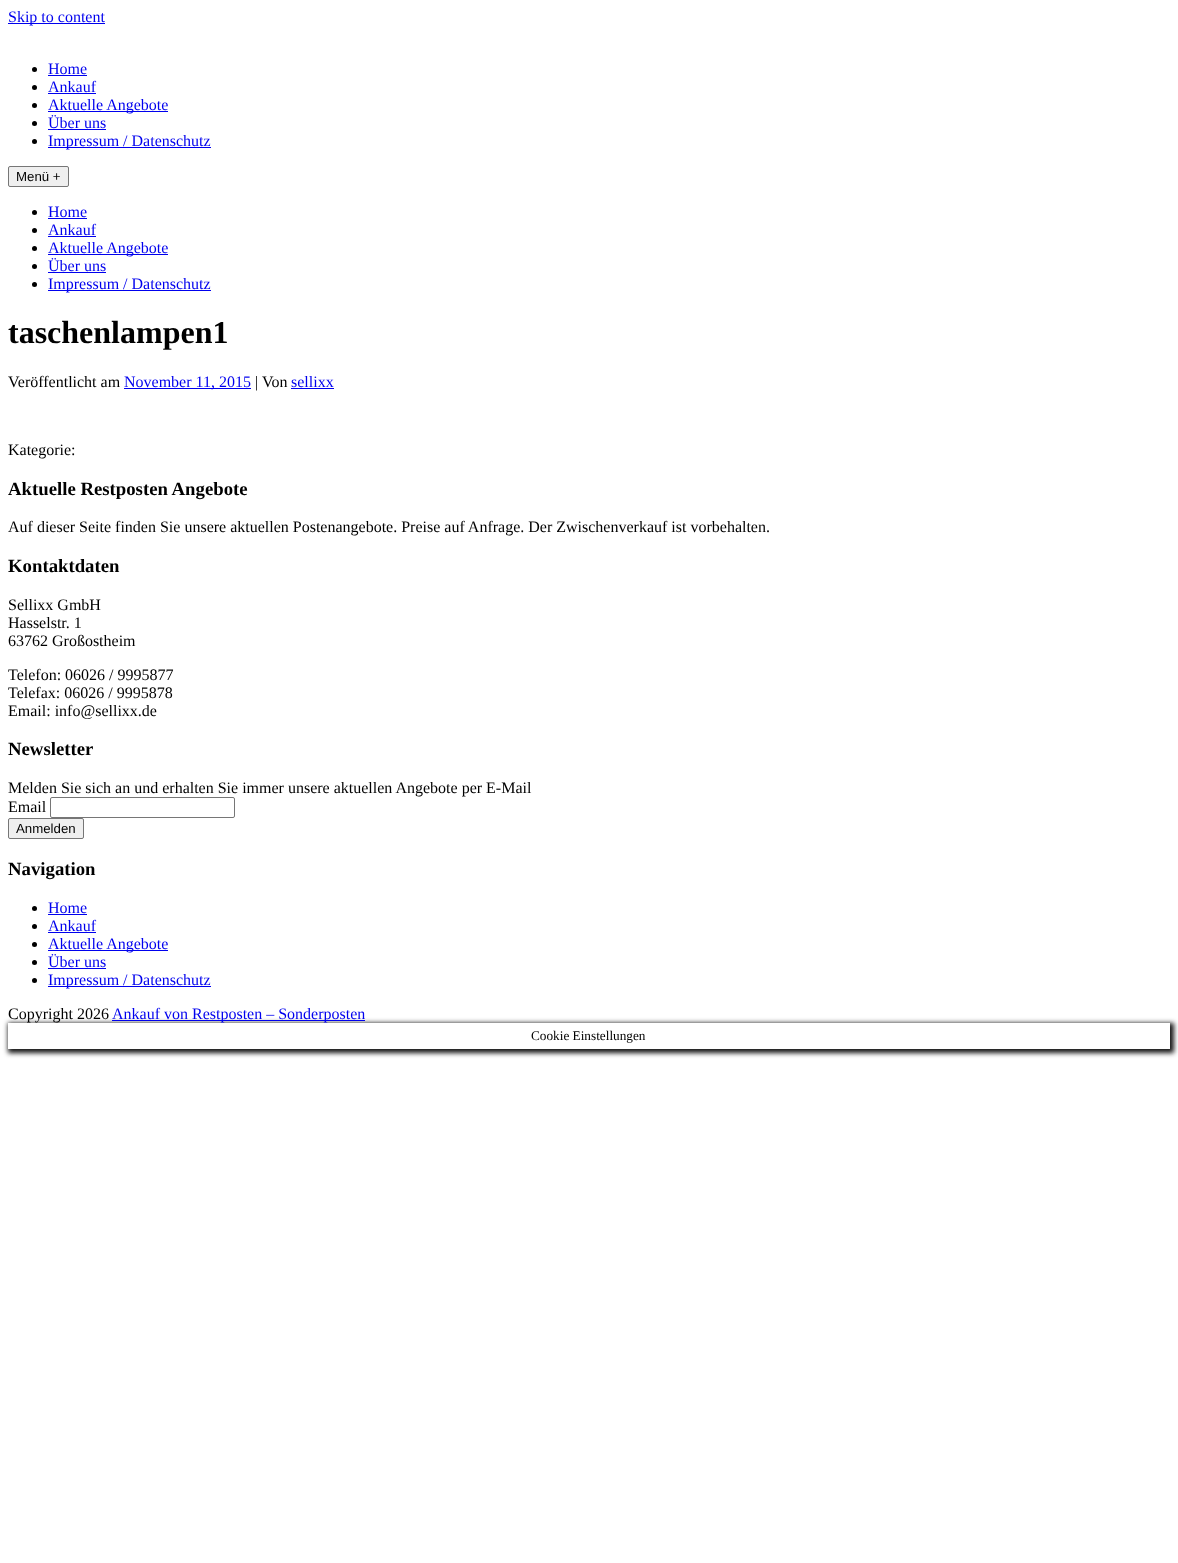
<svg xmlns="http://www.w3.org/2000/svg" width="1178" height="1563">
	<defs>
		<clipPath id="clip1"><path d="M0 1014H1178V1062H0ZM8 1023H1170V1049H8Z" clip-rule="evenodd" /></clipPath>
	</defs>
	<rect width="100%" height="100%" fill="#FFFFFF" />
	<rect x="8" y="23" width="97" height="1" fill="#0000EE" />
	<text x="8" y="22" font-family="Liberation Serif" font-size="16" fill="#0000EE">Skip to content</text>
	<circle cx="34.5" cy="69.5" r="2.5" fill="#000000" />
	<text x="48" y="74" font-family="Liberation Serif" font-size="16" fill="#0000EE">Home</text>
	<rect x="48" y="75" width="39" height="1" fill="#0000EE" />
	<circle cx="34.5" cy="87.5" r="2.5" fill="#000000" />
	<text x="48" y="92" font-family="Liberation Serif" font-size="16" fill="#0000EE">Ankauf</text>
	<rect x="48" y="93" width="48" height="1" fill="#0000EE" />
	<circle cx="34.5" cy="105.5" r="2.5" fill="#000000" />
	<rect x="48" y="111" width="120" height="1" fill="#0000EE" />
	<text x="48" y="110" font-family="Liberation Serif" font-size="16" fill="#0000EE">Aktuelle Angebote</text>
	<circle cx="34.5" cy="123.5" r="2.5" fill="#000000" />
	<text x="48" y="128" font-family="Liberation Serif" font-size="16" fill="#0000EE">Über uns</text>
	<rect x="48" y="129" width="58" height="1" fill="#0000EE" />
	<circle cx="34.5" cy="141.5" r="2.5" fill="#000000" />
	<rect x="48" y="147" width="163" height="1" fill="#0000EE" />
	<text x="48" y="146" font-family="Liberation Serif" font-size="16" fill="#0000EE">Impressum / Datenschutz</text>
	<rect x="8.5" y="166.5" width="60" height="20" rx="1.5" fill="#EFEFEF" stroke="#767676" />
	<text x="16" y="181" font-family="Liberation Sans" font-size="13.25" fill="#000000">Menü +</text>
	<circle cx="34.5" cy="212.5" r="2.5" fill="#000000" />
	<text x="48" y="217" font-family="Liberation Serif" font-size="16" fill="#0000EE">Home</text>
	<rect x="48" y="218" width="39" height="1" fill="#0000EE" />
	<circle cx="34.5" cy="230.5" r="2.5" fill="#000000" />
	<text x="48" y="235" font-family="Liberation Serif" font-size="16" fill="#0000EE">Ankauf</text>
	<rect x="48" y="236" width="48" height="1" fill="#0000EE" />
	<circle cx="34.5" cy="248.5" r="2.5" fill="#000000" />
	<rect x="48" y="254" width="120" height="1" fill="#0000EE" />
	<text x="48" y="253" font-family="Liberation Serif" font-size="16" fill="#0000EE">Aktuelle Angebote</text>
	<circle cx="34.5" cy="266.5" r="2.5" fill="#000000" />
	<text x="48" y="271" font-family="Liberation Serif" font-size="16" fill="#0000EE">Über uns</text>
	<rect x="48" y="272" width="58" height="1" fill="#0000EE" />
	<circle cx="34.5" cy="284.5" r="2.5" fill="#000000" />
	<rect x="48" y="290" width="163" height="1" fill="#0000EE" />
	<text x="48" y="289" font-family="Liberation Serif" font-size="16" fill="#0000EE">Impressum / Datenschutz</text>
	<text x="8" y="343" font-family="Liberation Serif" font-size="32" font-weight="700" fill="#000000">taschenlampen1</text>
	<text x="8" y="387" font-family="Liberation Serif" font-size="16" fill="#000000">Veröffentlicht am</text>
	<rect x="124" y="388" width="127" height="1" fill="#0000EE" />
	<text x="124" y="387" font-family="Liberation Serif" font-size="16" fill="#0000EE">November 11, 2015</text>
	<text x="255" y="387" font-family="Liberation Serif" font-size="16" fill="#000000">| Von</text>
	<text x="291" y="387" font-family="Liberation Serif" font-size="16" fill="#0000EE">sellixx</text>
	<rect x="291" y="388" width="43" height="1" fill="#0000EE" />
	<text x="8" y="455" font-family="Liberation Serif" font-size="16" fill="#000000">Kategorie:</text>
	<text x="8" y="495" font-family="Liberation Serif" font-size="18.75" font-weight="700" fill="#000000">Aktuelle Restposten Angebote</text>
	<text x="8" y="532" font-family="Liberation Serif" font-size="16" fill="#000000">Auf dieser Seite finden Sie unsere aktuellen Postenangebote. Preise auf Anfrage. Der Zwischenverkauf ist vorbehalten.</text>
	<text x="8" y="572" font-family="Liberation Serif" font-size="18.75" font-weight="700" fill="#000000">Kontaktdaten</text>
	<g font-family="Liberation Serif" font-size="16" fill="#000000">
		<text x="8" y="610">Sellixx GmbH</text>
		<text x="8" y="628">Hasselstr. 1</text>
		<text x="8" y="646">63762 Großostheim</text>
		<text x="8" y="680">Telefon: 06026 / 9995877</text>
		<text x="8" y="698">Telefax: 06026 / 9995878</text>
		<text x="8" y="716">Email: info@sellixx.de</text>
	</g>
	<text x="8" y="755" font-family="Liberation Serif" font-size="18.75" font-weight="700" fill="#000000">Newsletter</text>
	<g font-family="Liberation Serif" font-size="16" fill="#000000">
		<text x="8" y="793">Melden Sie sich an und erhalten Sie immer unsere aktuellen Angebote per E-Mail</text>
		<text x="8" y="812">Email</text>
	</g>
	<rect x="50.5" y="797.5" width="184" height="20" rx="1.5" fill="none" stroke="#767676" />
	<rect x="8.5" y="818.5" width="75" height="20" rx="1.5" fill="#EFEFEF" stroke="#767676" />
	<text x="16" y="833" font-family="Liberation Sans" font-size="13.25" fill="#000000">Anmelden</text>
	<text x="8" y="875" font-family="Liberation Serif" font-size="18.75" font-weight="700" fill="#000000">Navigation</text>
	<circle cx="34.5" cy="908.5" r="2.5" fill="#000000" />
	<text x="48" y="913" font-family="Liberation Serif" font-size="16" fill="#0000EE">Home</text>
	<rect x="48" y="914" width="39" height="1" fill="#0000EE" />
	<circle cx="34.5" cy="926.5" r="2.5" fill="#000000" />
	<text x="48" y="931" font-family="Liberation Serif" font-size="16" fill="#0000EE">Ankauf</text>
	<rect x="48" y="932" width="48" height="1" fill="#0000EE" />
	<circle cx="34.5" cy="944.5" r="2.5" fill="#000000" />
	<rect x="48" y="950" width="120" height="1" fill="#0000EE" />
	<text x="48" y="949" font-family="Liberation Serif" font-size="16" fill="#0000EE">Aktuelle Angebote</text>
	<circle cx="34.5" cy="962.5" r="2.5" fill="#000000" />
	<text x="48" y="967" font-family="Liberation Serif" font-size="16" fill="#0000EE">Über uns</text>
	<rect x="48" y="968" width="58" height="1" fill="#0000EE" />
	<circle cx="34.5" cy="980.5" r="2.5" fill="#000000" />
	<rect x="48" y="986" width="163" height="1" fill="#0000EE" />
	<text x="48" y="985" font-family="Liberation Serif" font-size="16" fill="#0000EE">Impressum / Datenschutz</text>
	<g clip-path="url(#clip1)">
		<rect x="8" y="1023" width="1166" height="30" fill="#161616" filter="blur(2.5px)" />
	</g>
	<text x="8" y="1019" font-family="Liberation Serif" font-size="16" fill="#000000">Copyright 2026</text>
	<rect x="112" y="1020" width="253" height="1" fill="#0000EE" />
	<text x="112" y="1019" font-family="Liberation Serif" font-size="16" fill="#0000EE">Ankauf von Restposten – Sonderposten</text>
	<text x="531" y="1040" font-family="Liberation Serif" font-size="13.25" fill="#000000">Cookie Einstellungen</text>
</svg>
